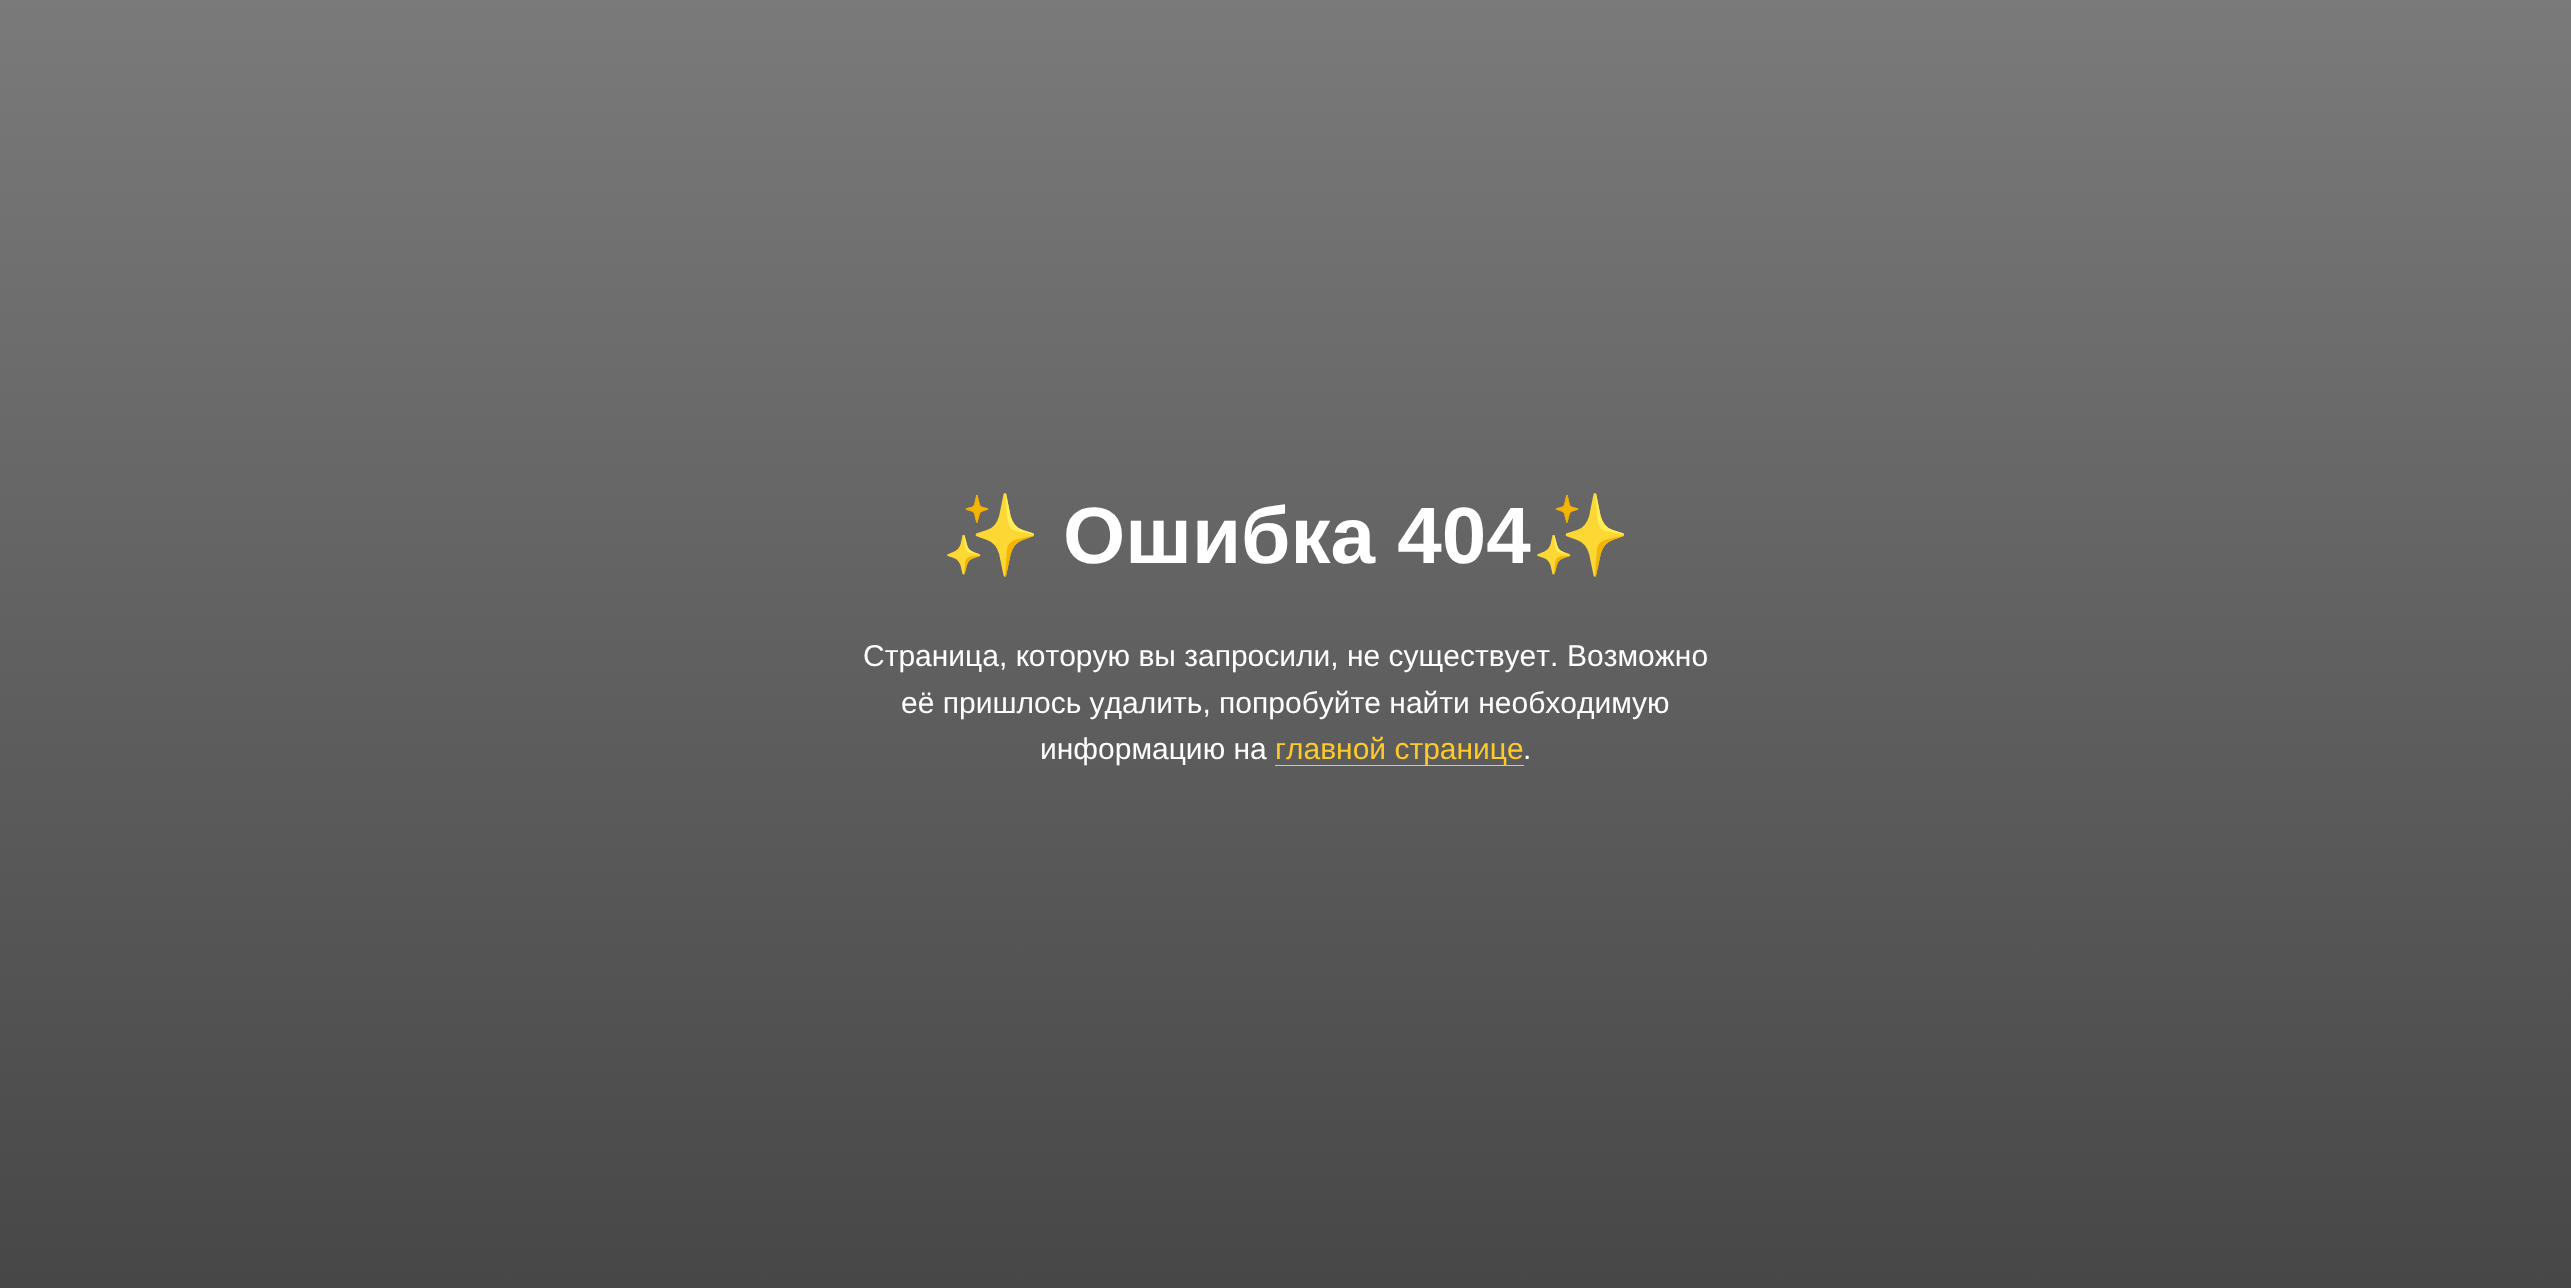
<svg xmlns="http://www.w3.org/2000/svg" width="2571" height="1288">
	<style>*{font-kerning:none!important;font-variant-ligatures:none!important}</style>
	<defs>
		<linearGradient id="g1" gradientUnits="userSpaceOnUse" x1="1286" y1="0" x2="1286" y2="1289"><stop offset="0" stop-color="#7A7A7A" /><stop offset="1" stop-color="#474747" /></linearGradient>
	</defs>
	<rect width="100%" height="100%" fill="#FFFFFF" />
	<rect x="0" y="0" width="2571" height="1288" fill="url(#g1)" />
	<text x="941" y="563" font-family="Noto Color Emoji" font-size="80" font-weight="700" fill="#FFFFFF">✨</text>
	<text x="1063" y="563" font-family="Liberation Sans" font-size="80" font-weight="700" fill="#FFFFFF">Ошибка 404</text>
	<text x="1531" y="563" font-family="Noto Color Emoji" font-size="80" font-weight="700" fill="#FFFFFF">✨</text>
	<g font-family="Liberation Sans" font-size="30" fill="#FFFFFF">
		<text x="863" y="666">Страница, которую вы запросили, не существует.</text>
		<text x="1567" y="666">Возможно</text>
		<text x="901" y="713">её пришлось удалить, попробуйте найти необходимую</text>
		<text x="1040" y="759">информацию на</text>
	</g>
	<rect x="1275" y="765" width="249" height="1" fill="#FECA29" />
	<text x="1275" y="759" font-family="Liberation Sans" font-size="30" fill="#FECA29">главной странице</text>
	<text x="1523" y="759" font-family="Liberation Sans" font-size="30" fill="#FFFFFF">.</text>
</svg>
